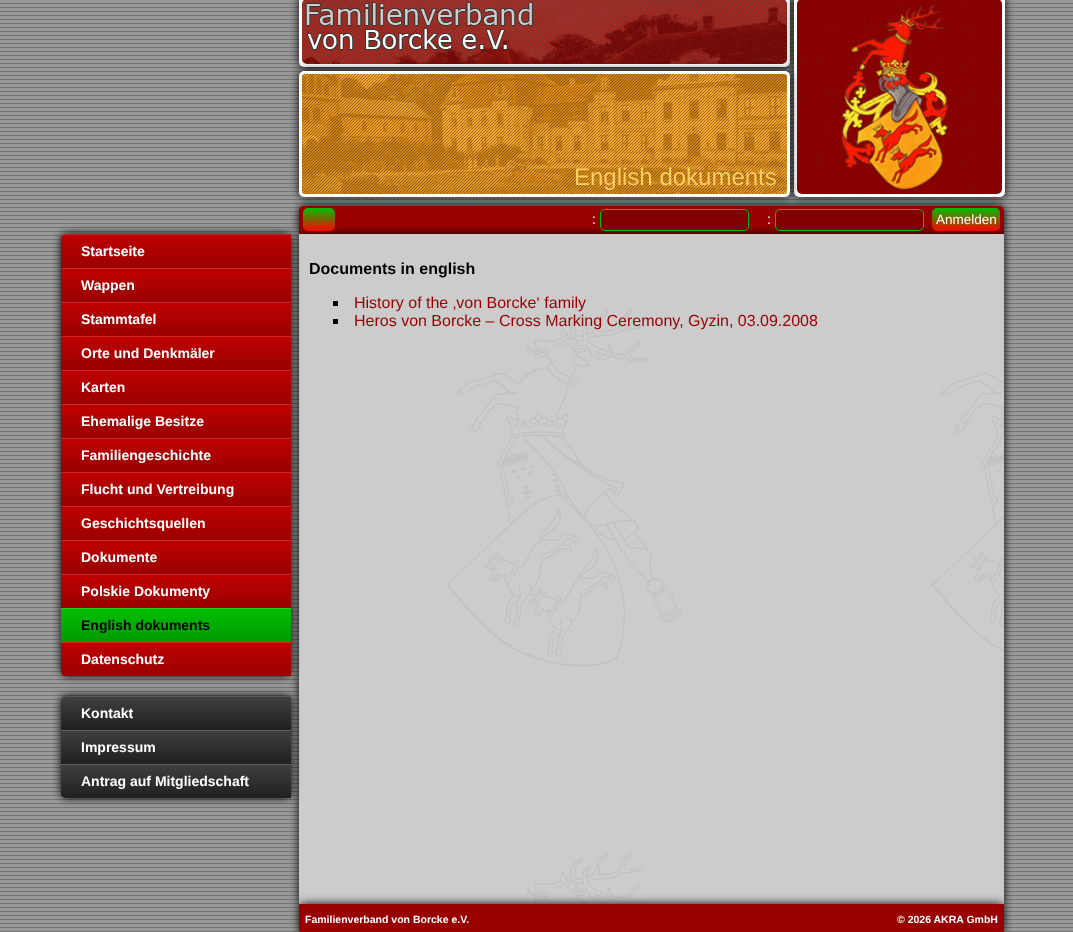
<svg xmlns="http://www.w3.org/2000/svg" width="1073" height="932">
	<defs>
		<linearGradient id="g1" gradientUnits="userSpaceOnUse" x1="319" y1="208" x2="319" y2="231"><stop offset="0" stop-color="#00C000" /><stop offset="1" stop-color="#FF0000" /></linearGradient>
		<linearGradient id="g2" gradientUnits="userSpaceOnUse" x1="966" y1="208" x2="966" y2="231"><stop offset="0" stop-color="#00C000" /><stop offset="1" stop-color="#FF0000" /></linearGradient>
		<linearGradient id="g3" gradientUnits="userSpaceOnUse" x1="176" y1="234" x2="176" y2="268"><stop offset="0" stop-color="#C00000" /><stop offset="1" stop-color="#990000" /></linearGradient>
		<linearGradient id="g4" gradientUnits="userSpaceOnUse" x1="176" y1="268" x2="176" y2="302"><stop offset="0" stop-color="#C00000" /><stop offset="1" stop-color="#990000" /></linearGradient>
		<linearGradient id="g5" gradientUnits="userSpaceOnUse" x1="176" y1="302" x2="176" y2="336"><stop offset="0" stop-color="#C00000" /><stop offset="1" stop-color="#990000" /></linearGradient>
		<linearGradient id="g6" gradientUnits="userSpaceOnUse" x1="176" y1="336" x2="176" y2="370"><stop offset="0" stop-color="#C00000" /><stop offset="1" stop-color="#990000" /></linearGradient>
		<linearGradient id="g7" gradientUnits="userSpaceOnUse" x1="176" y1="370" x2="176" y2="404"><stop offset="0" stop-color="#C00000" /><stop offset="1" stop-color="#990000" /></linearGradient>
		<linearGradient id="g8" gradientUnits="userSpaceOnUse" x1="176" y1="404" x2="176" y2="438"><stop offset="0" stop-color="#C00000" /><stop offset="1" stop-color="#990000" /></linearGradient>
		<linearGradient id="g9" gradientUnits="userSpaceOnUse" x1="176" y1="438" x2="176" y2="472"><stop offset="0" stop-color="#C00000" /><stop offset="1" stop-color="#990000" /></linearGradient>
		<linearGradient id="g10" gradientUnits="userSpaceOnUse" x1="176" y1="472" x2="176" y2="506"><stop offset="0" stop-color="#C00000" /><stop offset="1" stop-color="#990000" /></linearGradient>
		<linearGradient id="g11" gradientUnits="userSpaceOnUse" x1="176" y1="506" x2="176" y2="540"><stop offset="0" stop-color="#C00000" /><stop offset="1" stop-color="#990000" /></linearGradient>
		<linearGradient id="g12" gradientUnits="userSpaceOnUse" x1="176" y1="540" x2="176" y2="574"><stop offset="0" stop-color="#C00000" /><stop offset="1" stop-color="#990000" /></linearGradient>
		<linearGradient id="g13" gradientUnits="userSpaceOnUse" x1="176" y1="574" x2="176" y2="608"><stop offset="0" stop-color="#C00000" /><stop offset="1" stop-color="#990000" /></linearGradient>
		<linearGradient id="g14" gradientUnits="userSpaceOnUse" x1="176" y1="608" x2="176" y2="642"><stop offset="0" stop-color="#00C000" /><stop offset="1" stop-color="#009900" /></linearGradient>
		<linearGradient id="g15" gradientUnits="userSpaceOnUse" x1="176" y1="642" x2="176" y2="676"><stop offset="0" stop-color="#C00000" /><stop offset="1" stop-color="#990000" /></linearGradient>
		<linearGradient id="g16" gradientUnits="userSpaceOnUse" x1="176" y1="696" x2="176" y2="730"><stop offset="0" stop-color="#404040" /><stop offset="1" stop-color="#202020" /></linearGradient>
		<linearGradient id="g17" gradientUnits="userSpaceOnUse" x1="176" y1="730" x2="176" y2="764"><stop offset="0" stop-color="#404040" /><stop offset="1" stop-color="#202020" /></linearGradient>
		<linearGradient id="g18" gradientUnits="userSpaceOnUse" x1="176" y1="764" x2="176" y2="798"><stop offset="0" stop-color="#404040" /><stop offset="1" stop-color="#202020" /></linearGradient>
	</defs>
	<rect width="100%" height="100%" fill="#FFFFFF" />
	<image x="0" y="0" width="1073" height="932" href="assets/img1.png" />
	<rect x="299" y="-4" width="491" height="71" rx="5" fill="#000000" filter="blur(5px)" />
	<rect x="299" y="-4" width="491" height="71" rx="5" fill="#FFFFFF" />
	<image x="302" y="0" width="485" height="64" href="assets/img2.png" />
	<rect x="794" y="-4" width="211" height="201" rx="5" fill="#000000" filter="blur(5px)" />
	<rect x="794" y="-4" width="211" height="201" rx="5" fill="#FFFFFF" />
	<rect x="299" y="71" width="491" height="126" rx="5" fill="#000000" filter="blur(5px)" />
	<rect x="299" y="71" width="491" height="126" rx="5" fill="#FFFFFF" />
	<image x="302" y="74" width="485" height="120" href="assets/img4.png" />
	<rect x="299" y="206" width="705" height="28" rx="5" fill="#000000" filter="blur(5px)" />
	<image x="797" y="0" width="205" height="194" href="assets/img3.png" />
	<text x="574" y="185" font-family="Liberation Sans" font-size="24" fill="#FFCC66">English dokuments</text>
	<path d="M304 206H999C1002 206 1004 208 1004 211V234H299V211C299 208 301 206 304 206Z" fill="#990000" />
	<rect x="299" y="234" width="705" height="670" fill="#000000" filter="blur(5px)" />
	<rect x="303" y="208" width="32" height="23" rx="5" fill="url(#g1)" />
	<text x="592" y="224" font-family="Liberation Sans" font-size="14" fill="#FFFFFF">:</text>
	<rect x="600.5" y="209.5" width="148" height="21" rx="4.5" fill="#800000" stroke="#00C000" />
	<text x="767" y="224" font-family="Liberation Sans" font-size="14" fill="#FFFFFF">:</text>
	<rect x="775.5" y="209.5" width="148" height="21" rx="4.5" fill="#800000" stroke="#00C000" />
	<rect x="932" y="208" width="68" height="23" rx="5" fill="url(#g2)" />
	<text x="936" y="224" font-family="Liberation Sans" font-size="13.5" fill="#FFFFFF">Anmelden</text>
	<image x="299" y="234" width="705" height="670" href="assets/img5.png" />
	<rect x="61" y="234" width="230" height="442" rx="5" fill="#000000" filter="blur(5px)" />
	<path d="M66 234H291V268H61V239C61 236 63 234 66 234Z" fill="url(#g3)" />
	<path d="M66 235H291V234H66C63 234 61 237 61 240C61 237 63 235 66 235Z" fill="#FFFFFF" fill-opacity="0.15" />
	<text x="81" y="256" font-family="Liberation Sans" font-size="14" font-weight="700" fill="#FFFFFF">Startseite</text>
	<rect x="61" y="269" width="230" height="33" fill="url(#g4)" />
	<rect x="61" y="268" width="230" height="1" fill="#C92626" />
	<text x="81" y="290" font-family="Liberation Sans" font-size="14" font-weight="700" fill="#FFFFFF">Wappen</text>
	<rect x="61" y="303" width="230" height="33" fill="url(#g5)" />
	<rect x="61" y="302" width="230" height="1" fill="#C92626" />
	<text x="81" y="324" font-family="Liberation Sans" font-size="14" font-weight="700" fill="#FFFFFF">Stammtafel</text>
	<rect x="61" y="337" width="230" height="33" fill="url(#g6)" />
	<rect x="61" y="336" width="230" height="1" fill="#C92626" />
	<text x="81" y="358" font-family="Liberation Sans" font-size="14" font-weight="700" fill="#FFFFFF">Orte und Denkmäler</text>
	<rect x="61" y="371" width="230" height="33" fill="url(#g7)" />
	<rect x="61" y="370" width="230" height="1" fill="#C92626" />
	<text x="81" y="392" font-family="Liberation Sans" font-size="14" font-weight="700" fill="#FFFFFF">Karten</text>
	<rect x="61" y="405" width="230" height="33" fill="url(#g8)" />
	<rect x="61" y="404" width="230" height="1" fill="#C92626" />
	<text x="81" y="426" font-family="Liberation Sans" font-size="14" font-weight="700" fill="#FFFFFF">Ehemalige Besitze</text>
	<rect x="61" y="439" width="230" height="33" fill="url(#g9)" />
	<rect x="61" y="438" width="230" height="1" fill="#C92626" />
	<text x="81" y="460" font-family="Liberation Sans" font-size="14" font-weight="700" fill="#FFFFFF">Familiengeschichte</text>
	<rect x="61" y="473" width="230" height="33" fill="url(#g10)" />
	<rect x="61" y="472" width="230" height="1" fill="#C92626" />
	<text x="81" y="494" font-family="Liberation Sans" font-size="14" font-weight="700" fill="#FFFFFF">Flucht und Vertreibung</text>
	<rect x="61" y="507" width="230" height="33" fill="url(#g11)" />
	<rect x="61" y="506" width="230" height="1" fill="#C92626" />
	<text x="81" y="528" font-family="Liberation Sans" font-size="14" font-weight="700" fill="#FFFFFF">Geschichtsquellen</text>
	<rect x="61" y="541" width="230" height="33" fill="url(#g12)" />
	<rect x="61" y="540" width="230" height="1" fill="#C92626" />
	<text x="81" y="562" font-family="Liberation Sans" font-size="14" font-weight="700" fill="#FFFFFF">Dokumente</text>
	<rect x="61" y="575" width="230" height="33" fill="url(#g13)" />
	<rect x="61" y="574" width="230" height="1" fill="#C92626" />
	<text x="81" y="596" font-family="Liberation Sans" font-size="14" font-weight="700" fill="#FFFFFF">Polskie Dokumenty</text>
	<rect x="61" y="609" width="230" height="33" fill="url(#g14)" />
	<rect x="61" y="608" width="230" height="1" fill="#26C926" />
	<text x="81" y="630" font-family="Liberation Sans" font-size="14" font-weight="700" fill="#000000">English dokuments</text>
	<path d="M61 642H291V676H66C63 676 61 674 61 671Z" fill="url(#g15)" />
	<rect x="61" y="642" width="230" height="1" fill="#C92626" />
	<text x="81" y="664" font-family="Liberation Sans" font-size="14" font-weight="700" fill="#FFFFFF">Datenschutz</text>
	<rect x="61" y="696" width="230" height="102" rx="5" fill="#000000" filter="blur(5px)" />
	<path d="M66 696H291V730H61V701C61 698 63 696 66 696Z" fill="url(#g16)" />
	<path d="M66 697H291V696H66C63 696 61 699 61 702C61 699 63 697 66 697Z" fill="#FFFFFF" fill-opacity="0.15" />
	<text x="81" y="718" font-family="Liberation Sans" font-size="14" font-weight="700" fill="#FFFFFF">Kontakt</text>
	<rect x="61" y="731" width="230" height="33" fill="url(#g17)" />
	<rect x="61" y="730" width="230" height="1" fill="#5D5D5D" />
	<text x="81" y="752" font-family="Liberation Sans" font-size="14" font-weight="700" fill="#FFFFFF">Impressum</text>
	<path d="M61 764H291V798H66C63 798 61 796 61 793Z" fill="url(#g18)" />
	<rect x="61" y="764" width="230" height="1" fill="#5D5D5D" />
	<text x="81" y="786" font-family="Liberation Sans" font-size="14" font-weight="700" fill="#FFFFFF">Antrag auf Mitgliedschaft</text>
	<text x="309" y="274" font-family="Liberation Sans" font-size="16" font-weight="700" fill="#000000">Documents in english</text>
	<rect x="333" y="301" width="5" height="5" fill="#000000" />
	<text x="354" y="308" font-family="Liberation Sans" font-size="16" fill="#990000">History of the ‚von Borcke‘ family</text>
	<rect x="333" y="319" width="5" height="5" fill="#000000" />
	<text x="354" y="326" font-family="Liberation Sans" font-size="16" fill="#990000">Heros von Borcke – Cross Marking Ceremony, Gyzin, 03.09.2008</text>
	<rect x="299" y="904" width="705" height="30" rx="5" fill="#000000" filter="blur(5px)" />
	<path d="M299 904H1004V929C1004 932 1002 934 999 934H304C301 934 299 932 299 929Z" fill="#990000" />
	<g font-family="Liberation Sans" font-size="10.5" font-weight="700" fill="#FFFFFF">
		<text x="305" y="923">Familienverband von Borcke e.V.</text>
		<text x="897" y="923">© 2026 AKRA GmbH</text>
	</g>
</svg>
